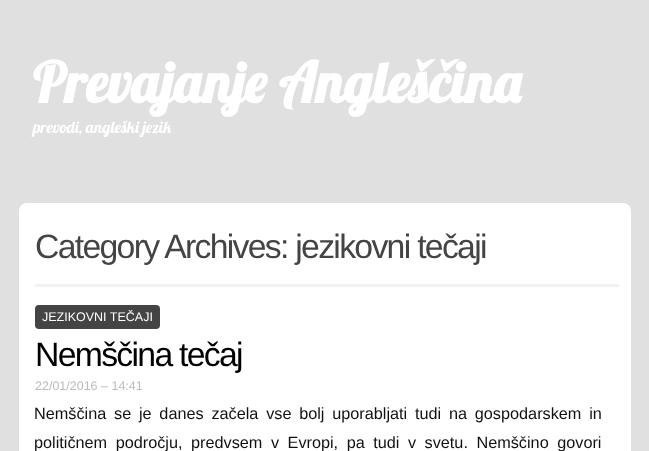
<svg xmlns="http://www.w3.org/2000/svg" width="649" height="451">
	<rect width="100%" height="100%" fill="#E0E0E0" />
	<text x="33" y="103" font-family="Lobster" font-size="56.25" font-weight="700" fill="#FFFFFF">Prevajanje Angleščina</text>
	<text x="33" y="133" font-family="Lobster" font-size="16.25" fill="#FFFFFF">prevodi, angleški jezik</text>
	<rect x="19" y="203" width="612" height="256" rx="8" fill="#FFFFFF" />
	<text x="35" y="258" font-family="Liberation Sans" font-size="33.75" letter-spacing="-1.7" fill="#444444">Category Archives: jezikovni tečaji</text>
	<rect x="35" y="284" width="584" height="3" fill="#F1F2F4" />
	<rect x="35" y="305" width="125" height="24" rx="4" fill="#444444" />
	<text x="42" y="321" font-family="Liberation Sans" font-size="12.5" fill="#FFFFFF">JEZIKOVNI TEČAJI</text>
	<text x="35" y="366" font-family="Liberation Sans" font-size="33.75" letter-spacing="-1.7" fill="#000000">Nemščina tečaj</text>
	<text x="35" y="390" font-family="Liberation Sans" font-size="12.5" fill="#BBBBBB">22/01/2016 – 14:41</text>
	<g font-family="Liberation Sans" font-size="16.25" fill="#111111">
		<text x="34" y="419" word-spacing="3.25">Nemščina se je danes začela vse bolj uporabljati tudi na gospodarskem in</text>
		<text x="34" y="448" word-spacing="4">političnem področju, predvsem v Evropi, pa tudi v svetu. Nemščino govori</text>
	</g>
</svg>
